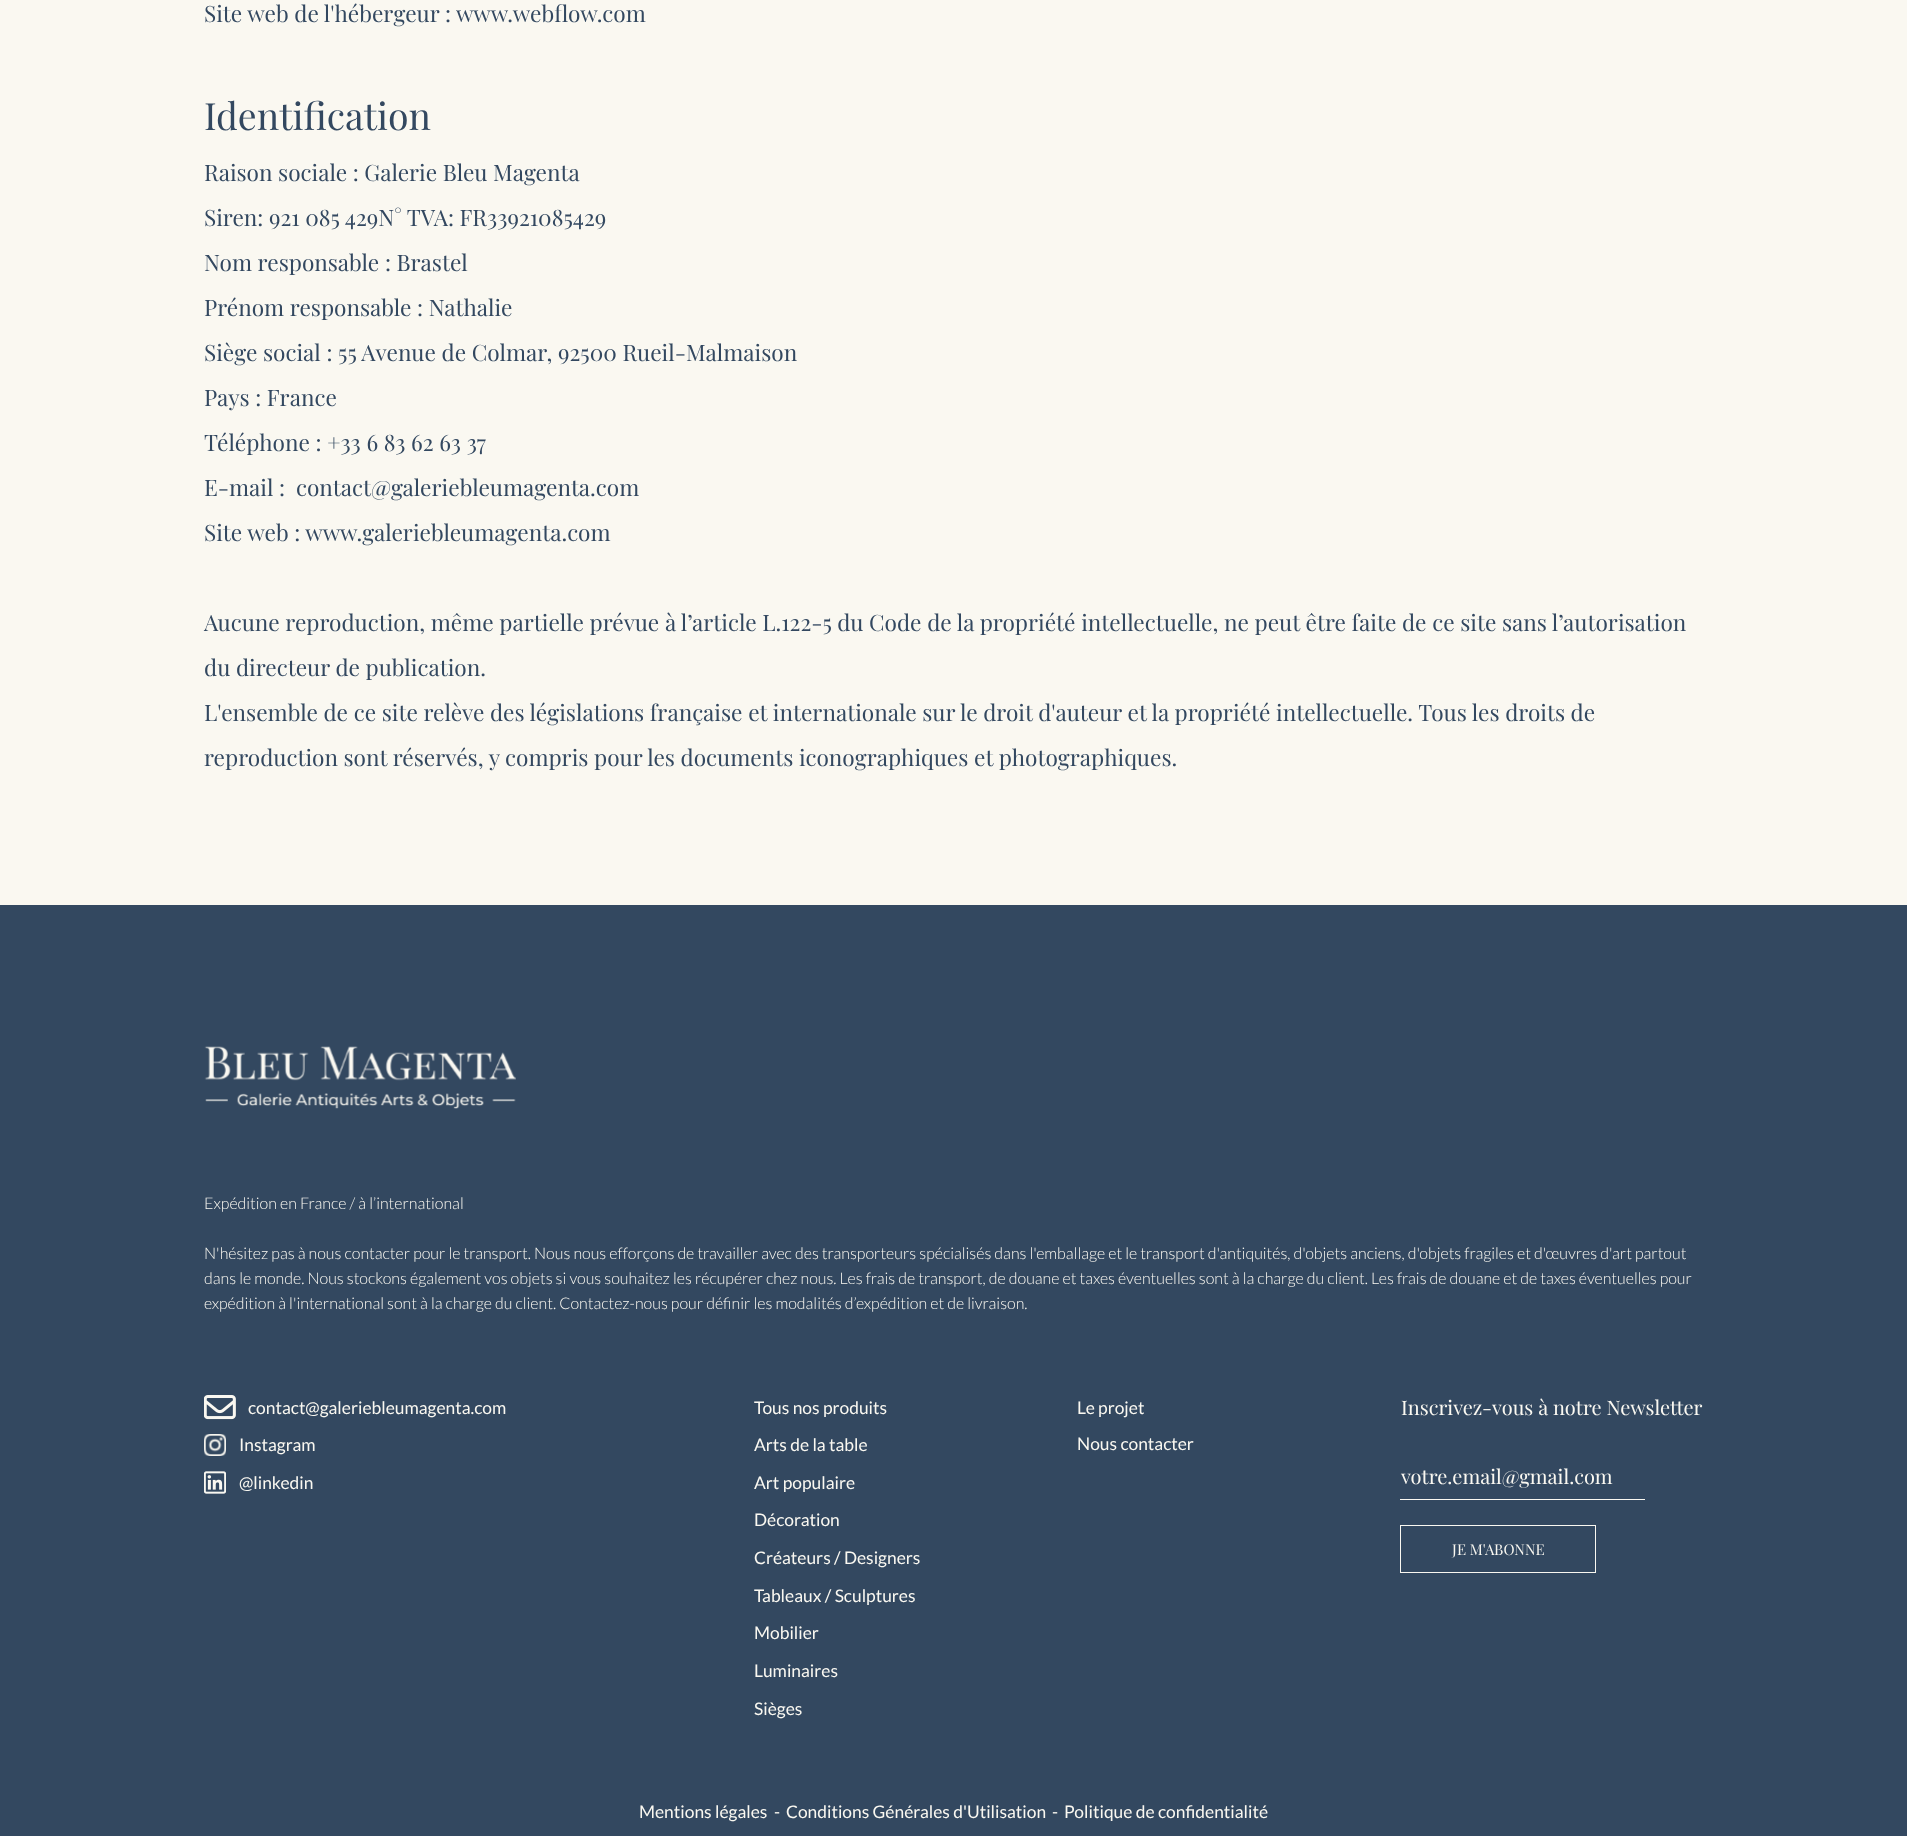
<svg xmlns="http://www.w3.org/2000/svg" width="1907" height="1836">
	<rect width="100%" height="100%" fill="#FAF8F1" />
	<text x="204" y="22" font-family="Playfair Display" font-size="22.6" fill="#334860">Site web de l'hébergeur : www.webflow.com</text>
	<text x="204" y="130" font-family="Playfair Display" font-size="37.5" fill="#334860">Identification</text>
	<g font-family="Playfair Display" font-size="22.6" fill="#334860">
		<text x="204" y="181">Raison sociale : Galerie Bleu Magenta</text>
		<text x="204" y="226">Siren: 921 085 429N° TVA: FR33921085429</text>
		<text x="204" y="271">Nom responsable : Brastel</text>
		<text x="204" y="316">Prénom responsable : Nathalie</text>
		<text x="204" y="361">Siège social : 55 Avenue de Colmar, 92500 Rueil-Malmaison</text>
		<text x="204" y="406">Pays : France</text>
		<text x="204" y="451">Téléphone : +33 6 83 62 63 37</text>
		<text x="204" y="496">E-mail :</text>
		<text x="296" y="496">contact@galeriebleumagenta.com</text>
		<text x="204" y="541">Site web : www.galeriebleumagenta.com</text>
		<text x="204" y="631">Aucune reproduction, même partielle prévue à l’article L.122-5 du Code de la propriété intellectuelle, ne peut être faite de ce site sans l’autorisation</text>
		<text x="204" y="676">du directeur de publication.</text>
		<text x="204" y="721">L'ensemble de ce site relève des législations française et internationale sur le droit d'auteur et la propriété intellectuelle. Tous les droits de</text>
		<text x="204" y="766">reproduction sont réservés, y compris pour les documents iconographiques et photographiques.</text>
	</g>
	<rect x="0" y="905" width="1907" height="931" fill="#334860" />
	<image x="204" y="1046" width="312" height="63" href="assets/img1.png" />
	<g font-family="Lato" font-size="16" font-weight="300" fill="#FAF8F1">
		<text x="204" y="1209">Expédition en France / à l’international</text>
		<text x="204" y="1259">N'hésitez pas à nous contacter pour le transport. Nous nous efforçons de travailler avec des transporteurs spécialisés dans l'emballage et le transport d'antiquités, d'objets anciens, d'objets fragiles et d'œuvres d'art partout</text>
		<text x="204" y="1284">dans le monde. Nous stockons également vos objets si vous souhaitez les récupérer chez nous. Les frais de transport, de douane et taxes éventuelles sont à la charge du client. Les frais de douane et de taxes éventuelles pour</text>
		<text x="204" y="1309">expédition à l'international sont à la charge du client. Contactez-nous pour définir les modalités d’expédition et de livraison.</text>
	</g>
	<image x="204" y="1395" width="32" height="25" href="assets/img2.png" />
	<text x="248" y="1414" font-family="Lato" font-size="17.4" fill="#FAF8F1">contact@galeriebleumagenta.com</text>
	<image x="204" y="1434" width="22" height="22" href="assets/img3.png" />
	<text x="239" y="1451" font-family="Lato" font-size="17.4" fill="#FAF8F1">Instagram</text>
	<image x="204" y="1471" width="22" height="23" href="assets/img4.png" />
	<g font-family="Lato" font-size="17.4" fill="#FAF8F1">
		<text x="239" y="1489">@linkedin</text>
		<text x="754" y="1414">Tous nos produits</text>
		<text x="754" y="1451">Arts de la table</text>
		<text x="754" y="1489">Art populaire</text>
		<text x="754" y="1526">Décoration</text>
		<text x="754" y="1564">Créateurs / Designers</text>
		<text x="754" y="1602">Tableaux / Sculptures</text>
		<text x="754" y="1639">Mobilier</text>
		<text x="754" y="1677">Luminaires</text>
		<text x="754" y="1715">Sièges</text>
		<text x="1077" y="1414">Le projet</text>
		<text x="1077" y="1450">Nous contacter</text>
	</g>
	<text x="1401" y="1415" font-family="Playfair Display" font-size="20" fill="#FAF8F1">Inscrivez-vous à notre Newsletter</text>
	<rect x="1400" y="1499" width="245" height="1" fill="#FAF8F1" />
	<text x="1401" y="1484" font-family="Playfair Display" font-size="20" fill="#FAF8F1">votre.email@gmail.com</text>
	<rect x="1400.5" y="1525.5" width="195" height="47" fill="none" stroke="#FAF8F1" />
	<text x="1452" y="1555" font-family="Playfair Display" font-size="15" fill="#FAF8F1">JE M'ABONNE</text>
	<g font-family="Lato" font-size="17.4" fill="#FAF8F1">
		<text x="639" y="1818">Mentions légales</text>
		<text x="774" y="1818">-</text>
		<text x="786" y="1818">Conditions Générales d'Utilisation</text>
		<text x="1052" y="1818">-</text>
		<text x="1064" y="1818">Politique de confidentialité</text>
	</g>
</svg>
